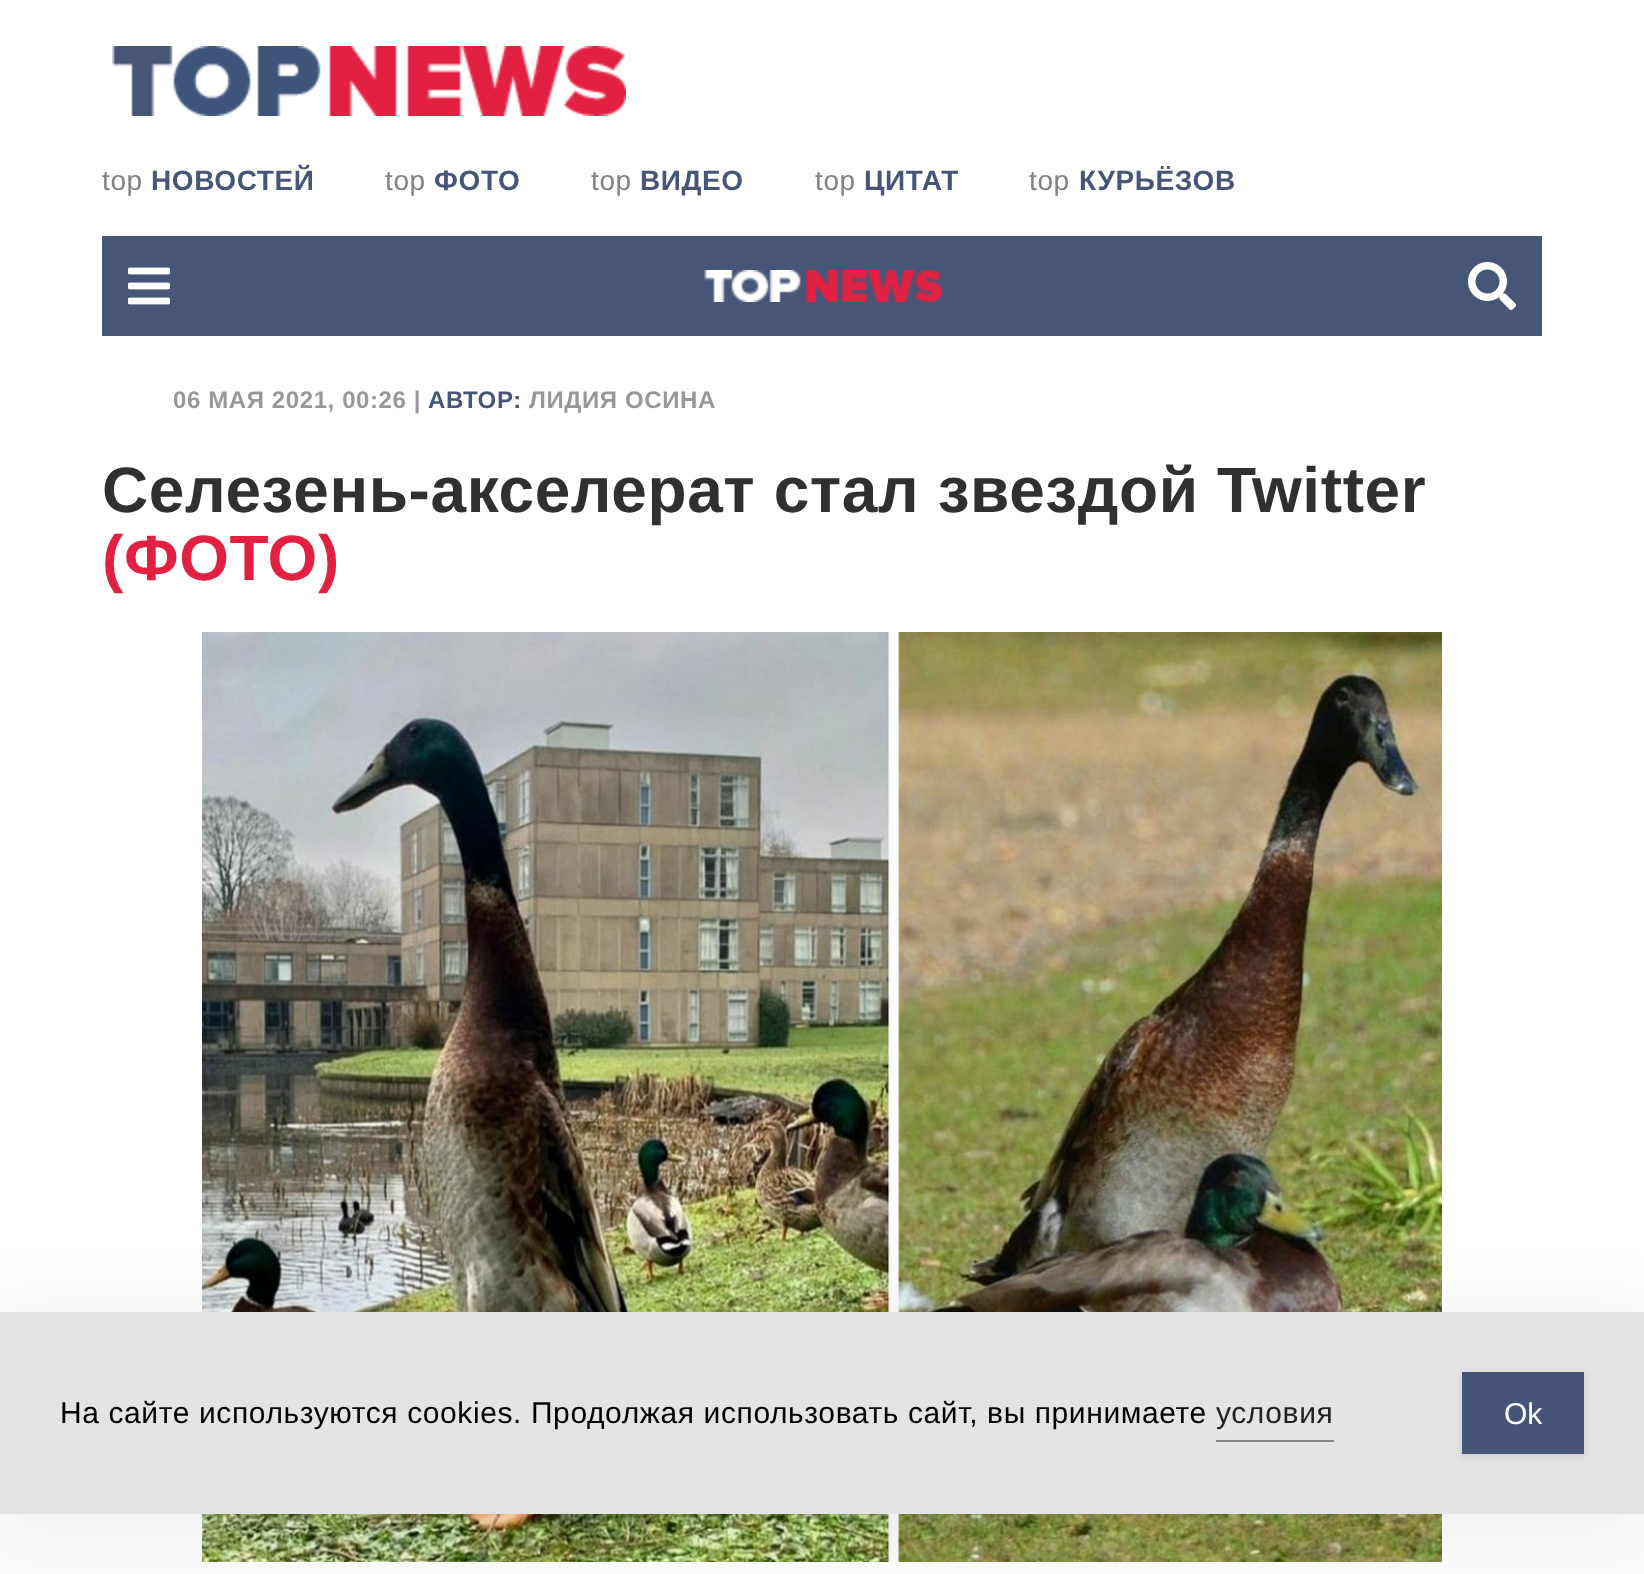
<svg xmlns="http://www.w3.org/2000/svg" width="1644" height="1574">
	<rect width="100%" height="100%" fill="#FFFFFF" />
	<image x="112" y="46" width="514" height="70" href="assets/img1.png" />
	<text x="102" y="190" font-family="Liberation Sans" font-size="28" letter-spacing="0.6" fill="#828282">top</text>
	<text x="151" y="190" font-family="Liberation Sans" font-size="28" font-weight="700" letter-spacing="0.6" fill="#475577">НОВОСТЕЙ</text>
	<text x="385" y="190" font-family="Liberation Sans" font-size="28" letter-spacing="0.6" fill="#828282">top</text>
	<text x="434" y="190" font-family="Liberation Sans" font-size="28" font-weight="700" letter-spacing="0.6" fill="#475577">ФОТО</text>
	<text x="591" y="190" font-family="Liberation Sans" font-size="28" letter-spacing="0.6" fill="#828282">top</text>
	<text x="640" y="190" font-family="Liberation Sans" font-size="28" font-weight="700" letter-spacing="0.6" fill="#475577">ВИДЕО</text>
	<text x="815" y="190" font-family="Liberation Sans" font-size="28" letter-spacing="0.6" fill="#828282">top</text>
	<text x="864" y="190" font-family="Liberation Sans" font-size="28" font-weight="700" letter-spacing="0.6" fill="#475577">ЦИТАТ</text>
	<text x="1029" y="190" font-family="Liberation Sans" font-size="28" letter-spacing="0.6" fill="#828282">top</text>
	<text x="1079" y="190" font-family="Liberation Sans" font-size="28" font-weight="700" letter-spacing="0.6" fill="#475577">КУРЬЁЗОВ</text>
	<rect x="102" y="236" width="1440" height="100" fill="#475577" />
	<image x="128" y="267" width="42" height="38" href="assets/img2.png" />
	<image x="704" y="270" width="238" height="32" href="assets/img3.png" />
	<image x="1468" y="262" width="48" height="48" href="assets/img4.png" />
	<text x="173" y="408" font-family="Liberation Sans" font-size="24" font-weight="700" letter-spacing="0.6" fill="#989898">06 МАЯ 2021, 00:26 |</text>
	<text x="428" y="408" font-family="Liberation Sans" font-size="24" font-weight="700" letter-spacing="0.6" fill="#475577">АВТОР:</text>
	<text x="529" y="408" font-family="Liberation Sans" font-size="24" font-weight="700" letter-spacing="0.6" fill="#989898">ЛИДИЯ ОСИНА</text>
	<text x="102" y="512" font-family="Liberation Sans" font-size="64" font-weight="700" letter-spacing="0.6" fill="#303030">Селезень-акселерат стал звездой Twitter</text>
	<text x="102" y="580" font-family="Liberation Sans" font-size="64" font-weight="700" letter-spacing="0.6" fill="#E22041">(ФОТО)</text>
	<image x="202" y="632" width="1240" height="930" href="assets/img5.png" />
	<rect x="-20" y="1312" width="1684" height="242" fill="#000000" fill-opacity="0.05" filter="blur(40px)" />
	<rect x="0" y="1312" width="1644" height="202" fill="#E4E4E4" />
	<text x="60" y="1423" font-family="Liberation Sans" font-size="30" letter-spacing="0.6" fill="#000000">На сайте используются cookies. Продолжая использовать сайт, вы принимаете</text>
	<text x="1216" y="1423" font-family="Liberation Sans" font-size="30" letter-spacing="0.6" fill="#222222">условия</text>
	<rect x="1216" y="1440" width="118" height="2" fill="#838383" />
	<rect x="1462" y="1374" width="122" height="82" fill="#000000" fill-opacity="0.1" filter="blur(4px)" />
	<rect x="1462" y="1372" width="122" height="82" fill="#465577" />
	<text x="1504" y="1424" font-family="Liberation Sans" font-size="30" fill="#FFFFFF">Ok</text>
</svg>
